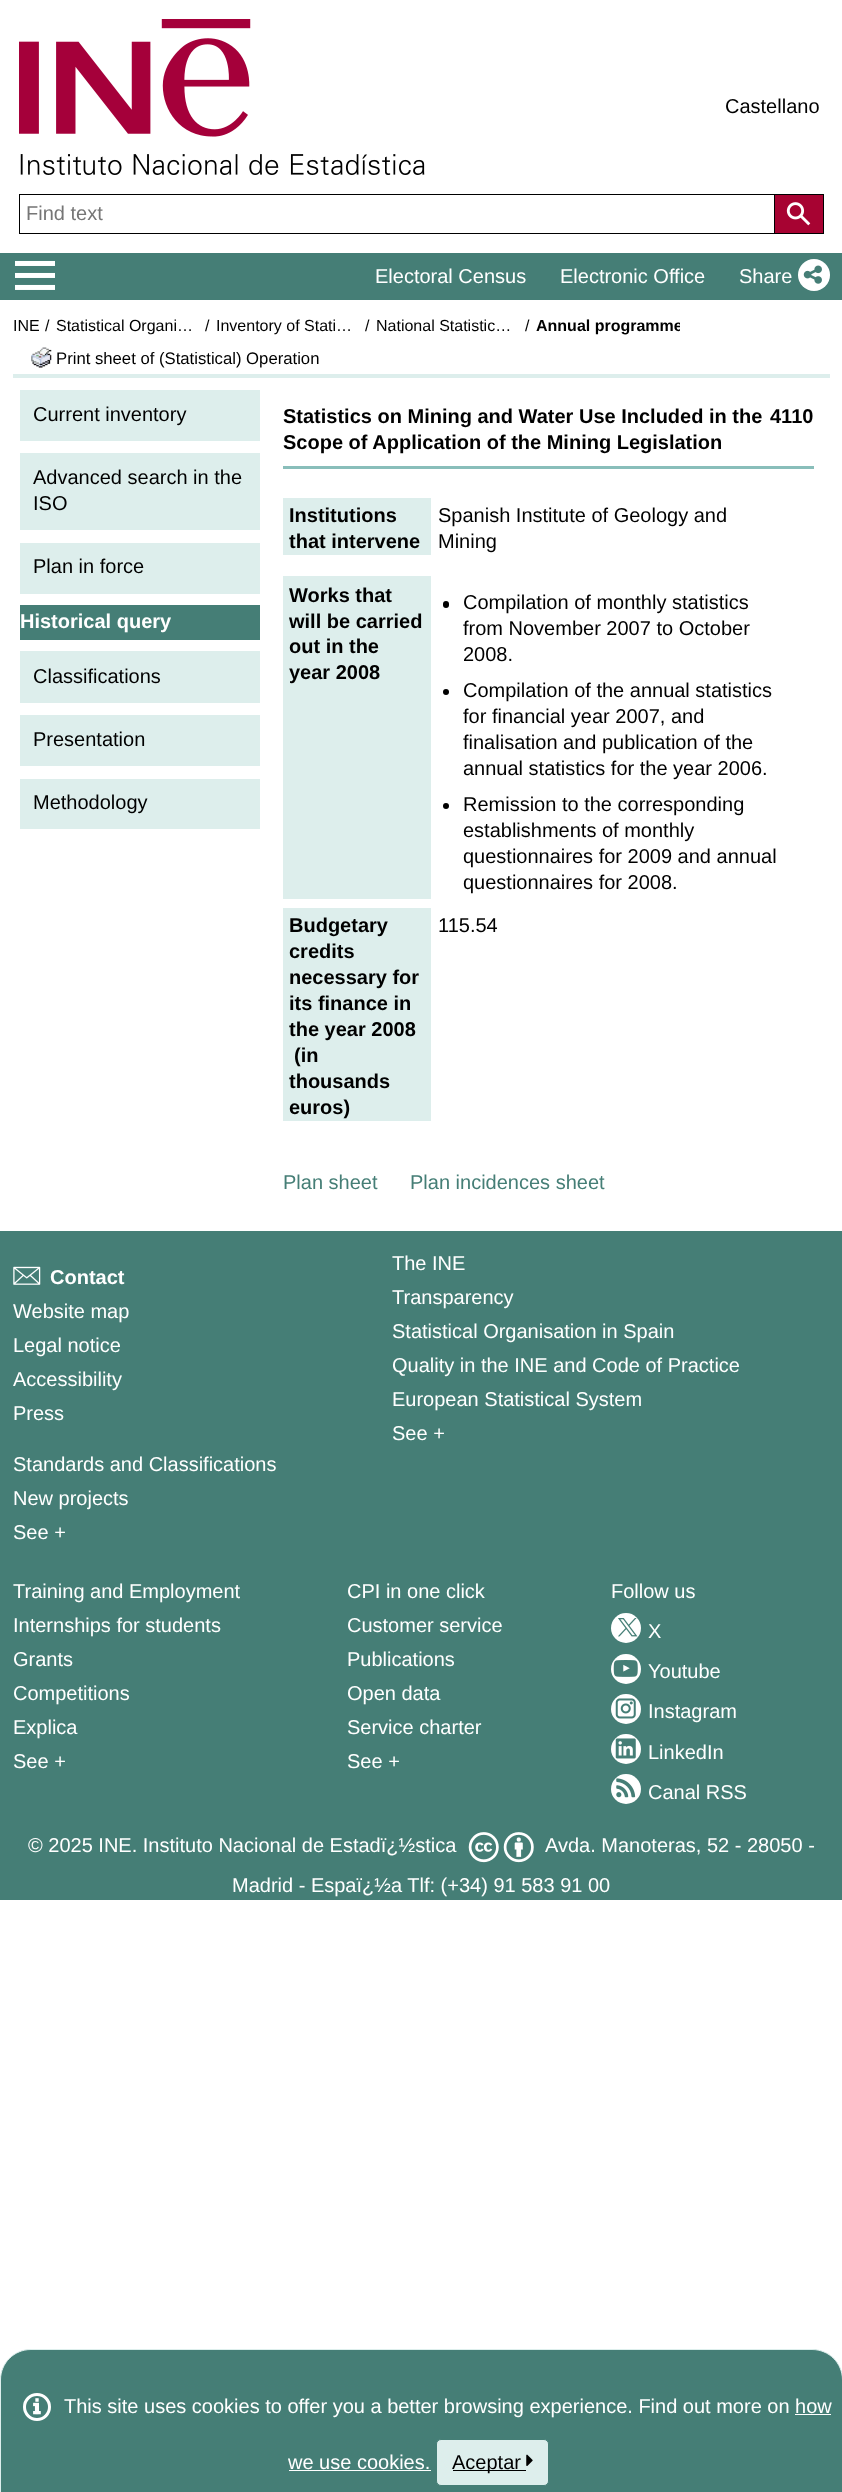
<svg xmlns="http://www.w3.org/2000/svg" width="842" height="2492">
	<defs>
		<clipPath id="clip1"><rect x="519" y="316" width="161" height="22" /></clipPath>
	</defs>
	<rect width="100%" height="100%" fill="#FFFFFF" />
	<image x="19" y="19" width="406" height="156" href="assets/img1.png" />
	<text x="725" y="113" font-family="Liberation Sans" font-size="20" fill="#000000">Castellano</text>
	<rect x="19.5" y="194.5" width="760" height="39" fill="none" stroke="#000000" />
	<text x="26" y="220" font-family="Liberation Sans" font-size="20" fill="#767676">Find text</text>
	<rect x="774.5" y="194.5" width="49" height="39" fill="#A70332" stroke="#000000" />
	<image x="786" y="202" width="25" height="24" href="assets/img2.png" />
	<rect x="0" y="253" width="842" height="47" fill="#457E76" />
	<image x="15" y="260" width="40" height="30" href="assets/img3.png" />
	<g font-family="Liberation Sans" font-size="20" fill="#FFFFFF">
		<text x="375" y="283">Electoral Census</text>
		<text x="560" y="283">Electronic Office</text>
		<text x="739" y="283">Share</text>
	</g>
	<circle cx="814" cy="275" r="16" fill="#FFFFFF" />
	<image x="803" y="265" width="19" height="19" href="assets/img4.png" />
	<rect x="13" y="374" width="817" height="4" fill="#DDEEEC" />
	<g font-family="Liberation Sans" font-size="16" fill="#000000">
		<text x="13" y="331">INE</text>
		<text x="45" y="331">/</text>
		<text x="56" y="331">Statistical Organi…</text>
		<text x="205" y="331">/</text>
		<text x="216" y="331">Inventory of Stati…</text>
		<text x="365" y="331">/</text>
		<text x="376" y="331">National Statistic…</text>
		<text x="525" y="331">/</text>
	</g>
	<g clip-path="url(#clip1)">
		<text x="536" y="331" font-family="Liberation Sans" font-size="16" font-weight="700" fill="#000000">Annual programme</text>
	</g>
	<image x="31" y="347" width="21" height="21" href="assets/img5.png" />
	<text x="56" y="364" font-family="Liberation Sans" font-size="16.7" fill="#000000">Print sheet of (Statistical) Operation</text>
	<rect x="20" y="390" width="240" height="51" fill="#DDEEEC" />
	<text x="33" y="421" font-family="Liberation Sans" font-size="20" fill="#000000">Current inventory</text>
	<rect x="20" y="453" width="240" height="77" fill="#DDEEEC" />
	<g font-family="Liberation Sans" font-size="20" fill="#000000">
		<text x="33" y="484">Advanced search in the</text>
		<text x="33" y="510">ISO</text>
	</g>
	<rect x="20" y="543" width="240" height="51" fill="#DDEEEC" />
	<text x="33" y="573" font-family="Liberation Sans" font-size="20" fill="#000000">Plan in force</text>
	<rect x="20" y="605" width="240" height="35" fill="#457E76" />
	<text x="20" y="628" font-family="Liberation Sans" font-size="20" font-weight="700" fill="#FFFFFF">Historical query</text>
	<rect x="20" y="651" width="240" height="52" fill="#DDEEEC" />
	<text x="33" y="683" font-family="Liberation Sans" font-size="20" fill="#000000">Classifications</text>
	<rect x="20" y="715" width="240" height="51" fill="#DDEEEC" />
	<text x="33" y="746" font-family="Liberation Sans" font-size="20" fill="#000000">Presentation</text>
	<rect x="20" y="779" width="240" height="50" fill="#DDEEEC" />
	<text x="33" y="809" font-family="Liberation Sans" font-size="20" fill="#000000">Methodology</text>
	<g font-family="Liberation Sans" font-size="20" font-weight="700" fill="#000000">
		<text x="283" y="423">Statistics on Mining and Water Use Included in the</text>
		<text x="770" y="423">4110</text>
		<text x="283" y="449">Scope of Application of the Mining Legislation</text>
	</g>
	<rect x="283" y="466" width="531" height="3" fill="#89BEBA" />
	<rect x="283" y="498" width="148" height="57" fill="#DDEEEC" />
	<g font-family="Liberation Sans" font-size="20" font-weight="700" fill="#000000">
		<text x="289" y="522">Institutions</text>
		<text x="289" y="548">that intervene</text>
	</g>
	<g font-family="Liberation Sans" font-size="20" fill="#000000">
		<text x="438" y="522">Spanish Institute of Geology and</text>
		<text x="438" y="548">Mining</text>
	</g>
	<rect x="283" y="576" width="148" height="323" fill="#DDEEEC" />
	<g font-family="Liberation Sans" font-size="20" font-weight="700" fill="#000000">
		<text x="289" y="602">Works that</text>
		<text x="289" y="628">will be carried</text>
		<text x="289" y="653">out in the</text>
		<text x="289" y="679">year 2008</text>
	</g>
	<rect x="443" y="601" width="6" height="7" rx="3" fill="#000000" />
	<g font-family="Liberation Sans" font-size="20" fill="#000000">
		<text x="463" y="609">Compilation of monthly statistics</text>
		<text x="463" y="635">from November 2007 to October</text>
		<text x="463" y="661">2008.</text>
	</g>
	<circle cx="446" cy="692" r="3" fill="#000000" />
	<g font-family="Liberation Sans" font-size="20" fill="#000000">
		<text x="463" y="697">Compilation of the annual statistics</text>
		<text x="463" y="723">for financial year 2007, and</text>
		<text x="463" y="749">finalisation and publication of the</text>
		<text x="463" y="775">annual statistics for the year 2006.</text>
	</g>
	<circle cx="446" cy="806" r="3" fill="#000000" />
	<g font-family="Liberation Sans" font-size="20" fill="#000000">
		<text x="463" y="811">Remission to the corresponding</text>
		<text x="463" y="837">establishments of monthly</text>
		<text x="463" y="863">questionnaires for 2009 and annual</text>
		<text x="463" y="889">questionnaires for 2008.</text>
	</g>
	<rect x="283" y="908" width="148" height="213" fill="#DDEEEC" />
	<g font-family="Liberation Sans" font-size="20" font-weight="700" fill="#000000">
		<text x="289" y="932">Budgetary</text>
		<text x="289" y="958">credits</text>
		<text x="289" y="984">necessary for</text>
		<text x="289" y="1010">its finance in</text>
		<text x="289" y="1036">the year 2008</text>
		<text x="294" y="1062">(in</text>
		<text x="289" y="1088">thousands</text>
		<text x="289" y="1114">euros)</text>
	</g>
	<text x="438" y="932" font-family="Liberation Sans" font-size="20" fill="#000000">115.54</text>
	<g font-family="Liberation Sans" font-size="20" fill="#457E76">
		<text x="283" y="1189">Plan sheet</text>
		<text x="410" y="1189">Plan incidences sheet</text>
	</g>
	<rect x="0" y="1231" width="842" height="669" fill="#457E76" />
	<image x="13" y="1266" width="28" height="19" href="assets/img6.png" />
	<text x="50" y="1284" font-family="Liberation Sans" font-size="20" font-weight="700" fill="#FFFFFF">Contact</text>
	<g font-family="Liberation Sans" font-size="20" fill="#FFFFFF">
		<text x="13" y="1318">Website map</text>
		<text x="13" y="1352">Legal notice</text>
		<text x="13" y="1386">Accessibility</text>
		<text x="13" y="1420">Press</text>
		<text x="13" y="1471">Standards and Classifications</text>
		<text x="13" y="1505">New projects</text>
		<text x="13" y="1539">See +</text>
		<text x="392" y="1270">The INE</text>
		<text x="392" y="1304">Transparency</text>
		<text x="392" y="1338">Statistical Organisation in Spain</text>
		<text x="392" y="1372">Quality in the INE and Code of Practice</text>
		<text x="392" y="1406">European Statistical System</text>
		<text x="392" y="1440">See +</text>
		<text x="13" y="1598">Training and Employment</text>
		<text x="13" y="1632">Internships for students</text>
		<text x="13" y="1666">Grants</text>
		<text x="13" y="1700">Competitions</text>
		<text x="13" y="1734">Explica</text>
		<text x="13" y="1768">See +</text>
		<text x="347" y="1598">CPI in one click</text>
		<text x="347" y="1632">Customer service</text>
		<text x="347" y="1666">Publications</text>
		<text x="347" y="1700">Open data</text>
		<text x="347" y="1734">Service charter</text>
		<text x="347" y="1768">See +</text>
		<text x="611" y="1598">Follow us</text>
	</g>
	<circle cx="626" cy="1628" r="15" fill="#FFFFFF" />
	<image x="618" y="1618" width="20" height="19" href="assets/img7.png" />
	<text x="648" y="1638" font-family="Liberation Sans" font-size="20" fill="#FFFFFF">X</text>
	<circle cx="626" cy="1669" r="15" fill="#FFFFFF" />
	<image x="613" y="1660" width="25" height="17" href="assets/img8.png" />
	<text x="648" y="1678" font-family="Liberation Sans" font-size="20" fill="#FFFFFF">Youtube</text>
	<circle cx="626" cy="1709" r="15" fill="#FFFFFF" />
	<image x="615" y="1698" width="21" height="21" href="assets/img9.png" />
	<text x="648" y="1718" font-family="Liberation Sans" font-size="20" fill="#FFFFFF">Instagram</text>
	<circle cx="626" cy="1749" r="15" fill="#FFFFFF" />
	<image x="615" y="1738" width="21" height="21" href="assets/img10.png" />
	<text x="648" y="1759" font-family="Liberation Sans" font-size="20" fill="#FFFFFF">LinkedIn</text>
	<circle cx="626" cy="1789" r="15" fill="#FFFFFF" />
	<image x="616" y="1778" width="20" height="20" href="assets/img11.png" />
	<g font-family="Liberation Sans" font-size="20" fill="#FFFFFF">
		<text x="648" y="1799">Canal RSS</text>
		<text x="28" y="1852">© 2025 INE. Instituto Nacional de Estadï¿½stica</text>
	</g>
	<image x="468" y="1832" width="31" height="31" href="assets/img12.png" />
	<image x="503" y="1832" width="31" height="31" href="assets/img13.png" />
	<g font-family="Liberation Sans" font-size="20" fill="#FFFFFF">
		<text x="545" y="1852">Avda. Manoteras, 52 - 28050 -</text>
		<text x="232" y="1892">Madrid - Espaï¿½a Tlf: (+34) 91 583 91 00</text>
	</g>
	<path d="M31 2349.5H812C829 2349.5 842.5 2363 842.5 2380V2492.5H.5V2380C.5 2363 14 2349.5 31 2349.5Z" fill="#457E76" stroke="#DDEEEC" />
	<circle cx="37" cy="2407" r="12.5" fill="none" stroke="#FFFFFF" stroke-width="3" />
	<image x="33" y="2398" width="8" height="17" href="assets/img14.png" />
	<g font-family="Liberation Sans" font-size="20" fill="#FFFFFF">
		<text x="64" y="2413">This site uses cookies to offer you a better browsing experience. Find out more on how</text>
		<text x="288" y="2469">we use cookies.</text>
	</g>
	<rect x="795" y="2414" width="36" height="1" fill="#FFFFFF" />
	<rect x="289" y="2470" width="142" height="1" fill="#FFFFFF" />
	<rect x="436.5" y="2439.5" width="112" height="46" rx="4.5" fill="#DDEEEC" stroke="#457E76" />
	<rect x="453" y="2470" width="73" height="1" fill="#000000" />
	<text x="452" y="2469" font-family="Liberation Sans" font-size="20" fill="#000000">Aceptar</text>
	<image x="526" y="2454" width="7" height="12" href="assets/img15.png" />
</svg>
